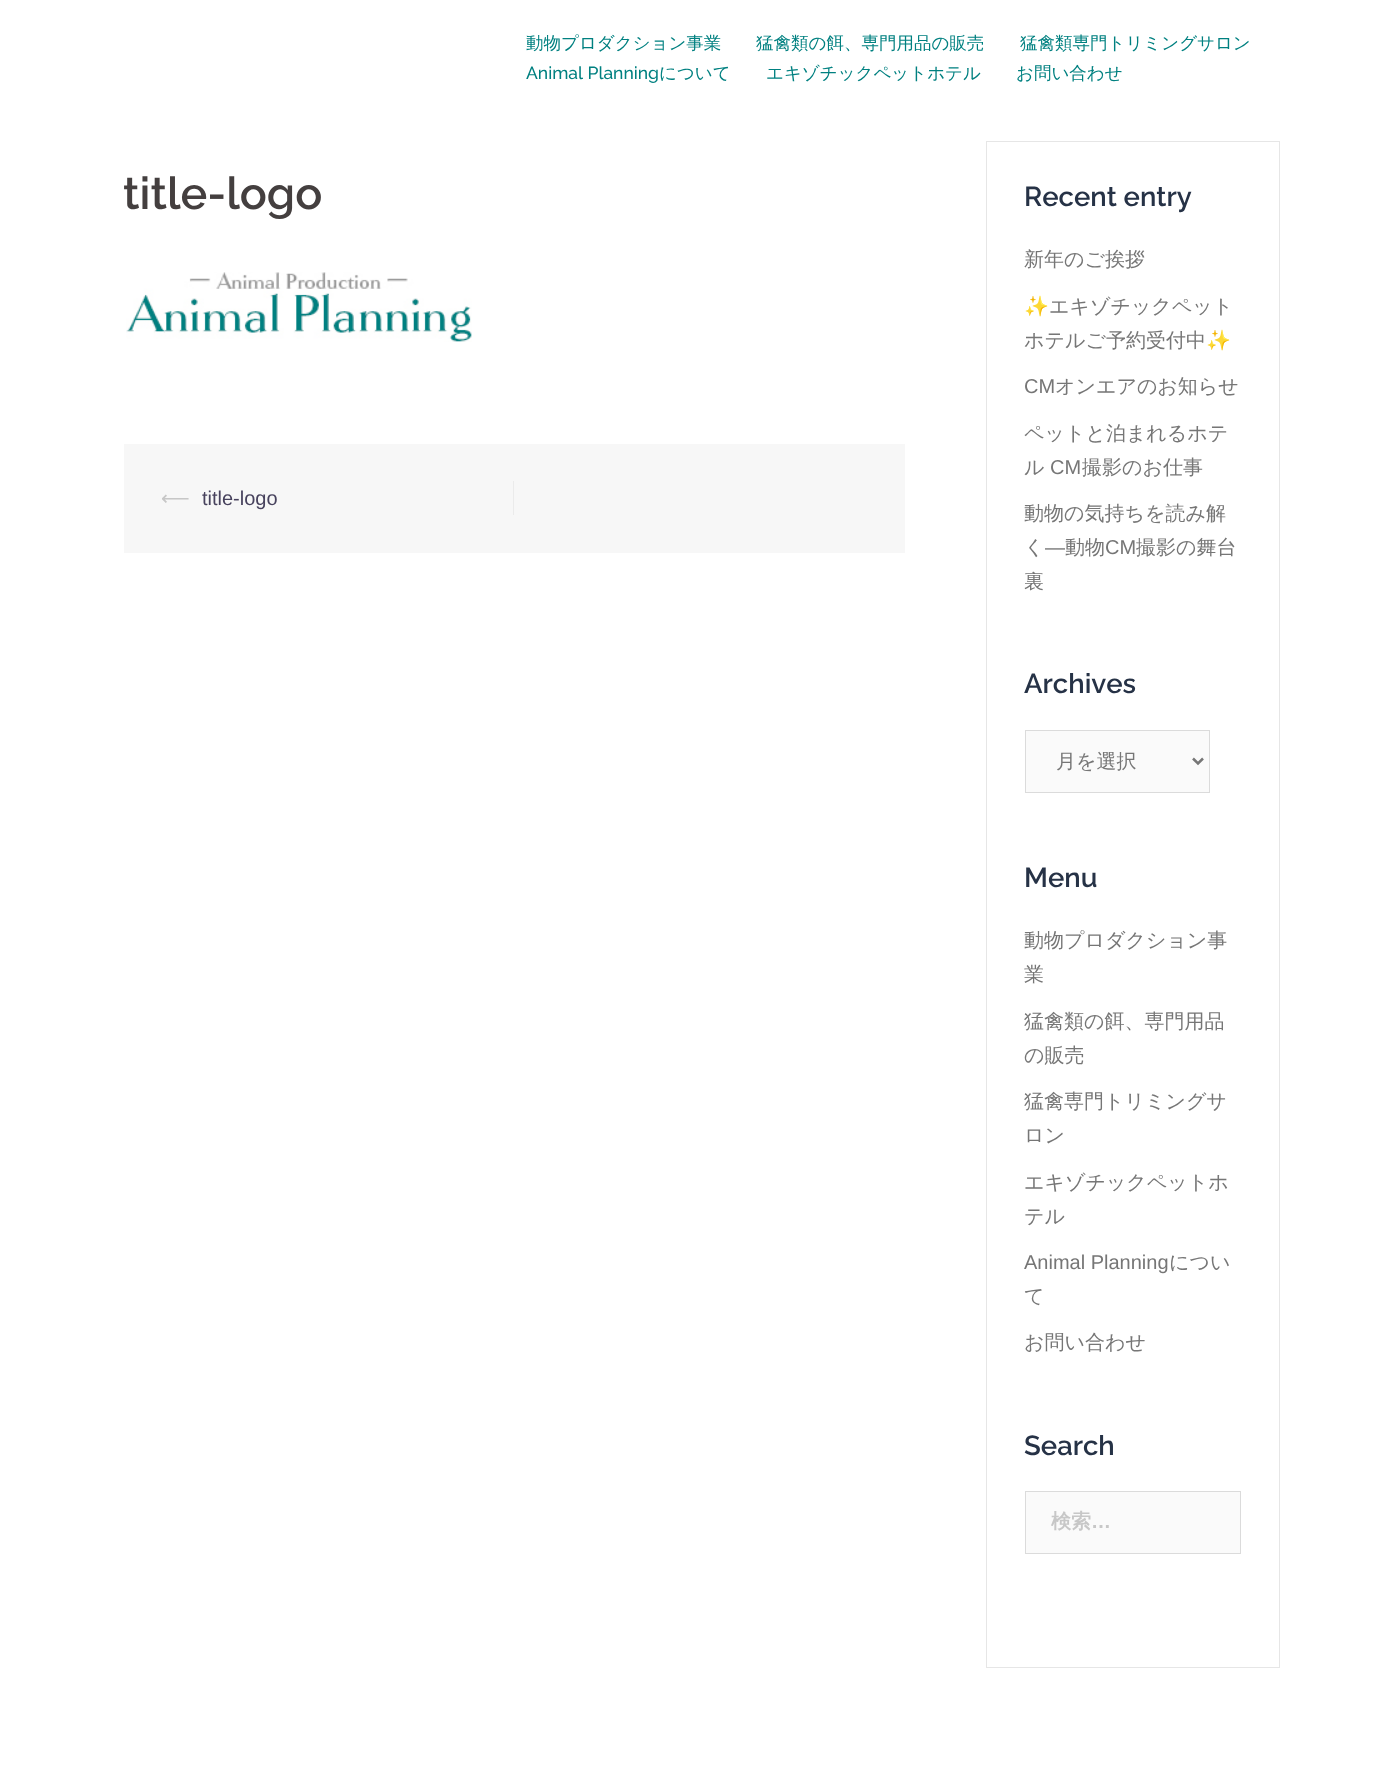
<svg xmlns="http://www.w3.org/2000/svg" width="1383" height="1769">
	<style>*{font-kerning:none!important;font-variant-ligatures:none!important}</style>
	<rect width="100%" height="100%" fill="#FFFFFF" />
	<g font-family="WenQuanYi Zen Hei" font-size="17.5" font-weight="500" fill="#008080">
		<text x="526" y="49">動物プロダクション事業</text>
		<text x="756" y="49">猛禽類の餌、専門用品の販売</text>
		<text x="1020" y="49">猛禽類専門トリミングサロン</text>
	</g>
	<text x="526" y="79" font-family="Raleway" font-size="17.5" font-weight="500" fill="#008080">Animal Planning</text>
	<g font-family="WenQuanYi Zen Hei" font-size="17.5" font-weight="500" fill="#008080">
		<text x="659" y="79">について</text>
		<text x="766" y="79">エキゾチックペットホテル</text>
		<text x="1016" y="79">お問い合わせ</text>
	</g>
	<text x="123" y="209" font-family="Raleway" font-size="45" font-weight="600" fill="#443F3F">title-logo</text>
	<image x="126" y="272" width="346" height="70" href="assets/img1.png" />
	<rect x="124" y="444" width="781" height="109" fill="#F7F7F7" />
	<rect x="513" y="481" width="1" height="34" fill="#EBEBEB" />
	<text x="161" y="505" font-family="DejaVu Sans" font-size="20" fill="#C7C7C7">⟵</text>
	<text x="202" y="505" font-family="Liberation Sans" font-size="20" fill="#47425D">title-logo</text>
	<rect x="986.5" y="141.5" width="293" height="1526" fill="none" stroke="#E6E6E6" />
	<text x="1024" y="206" font-family="Raleway" font-size="27.5" font-weight="600" fill="#263246">Recent entry</text>
	<text x="1024" y="266" font-family="WenQuanYi Zen Hei" font-size="20" font-weight="500" fill="#767676">新年のご挨拶</text>
	<text x="1024" y="313" font-family="Noto Color Emoji" font-size="20" fill="#767676">✨</text>
	<g font-family="WenQuanYi Zen Hei" font-size="20" font-weight="500" fill="#767676">
		<text x="1049" y="313">エキゾチックペット</text>
		<text x="1024" y="347">ホテルご予約受付中</text>
	</g>
	<text x="1206" y="347" font-family="Noto Color Emoji" font-size="20" fill="#767676">✨</text>
	<text x="1024" y="393" font-family="Liberation Sans" font-size="20" fill="#767676">CM</text>
	<g font-family="WenQuanYi Zen Hei" font-size="20" font-weight="500" fill="#767676">
		<text x="1055" y="393">オンエアのお知らせ</text>
		<text x="1024" y="440">ペットと泊まれるホテ</text>
		<text x="1024" y="474">ル</text>
	</g>
	<text x="1050" y="474" font-family="Liberation Sans" font-size="20" fill="#767676">CM</text>
	<g font-family="WenQuanYi Zen Hei" font-size="20" font-weight="500" fill="#767676">
		<text x="1082" y="474">撮影のお仕事</text>
		<text x="1024" y="520">動物の気持ちを読み解</text>
		<text x="1024" y="554">く</text>
	</g>
	<text x="1045" y="554" font-family="Liberation Sans" font-size="20" fill="#767676">—</text>
	<text x="1065" y="554" font-family="WenQuanYi Zen Hei" font-size="20" font-weight="500" fill="#767676">動物</text>
	<text x="1105" y="554" font-family="Liberation Sans" font-size="20" fill="#767676">CM</text>
	<g font-family="WenQuanYi Zen Hei" font-size="20" font-weight="500" fill="#767676">
		<text x="1136" y="554">撮影の舞台</text>
		<text x="1024" y="588">裏</text>
	</g>
	<text x="1024" y="693" font-family="Raleway" font-size="27.5" font-weight="600" fill="#263246">Archives</text>
	<rect x="1025.5" y="730.5" width="184" height="62" fill="#FAFAFA" stroke="#DBDBDB" />
	<path d="M1193 758.5L1198 763.5L1203 758.5" fill="none" stroke="#767676" stroke-width="2.5" />
	<text x="1056" y="768" font-family="WenQuanYi Zen Hei" font-size="20" font-weight="500" fill="#767676">月を選択</text>
	<text x="1024" y="887" font-family="Raleway" font-size="27.5" font-weight="600" fill="#263246">Menu</text>
	<g font-family="WenQuanYi Zen Hei" font-size="20" font-weight="500" fill="#767676">
		<text x="1024" y="947">動物プロダクション事</text>
		<text x="1024" y="981">業</text>
		<text x="1024" y="1028">猛禽類の餌、専門用品</text>
		<text x="1024" y="1062">の販売</text>
		<text x="1024" y="1108">猛禽専門トリミングサ</text>
		<text x="1024" y="1142">ロン</text>
		<text x="1024" y="1189">エキゾチックペットホ</text>
		<text x="1024" y="1223">テル</text>
	</g>
	<text x="1024" y="1269" font-family="Liberation Sans" font-size="20" fill="#767676">Animal Planning</text>
	<g font-family="WenQuanYi Zen Hei" font-size="20" font-weight="500" fill="#767676">
		<text x="1169" y="1269">につい</text>
		<text x="1024" y="1303">て</text>
		<text x="1024" y="1349">お問い合わせ</text>
	</g>
	<text x="1024" y="1455" font-family="Raleway" font-size="27.5" font-weight="600" fill="#263246">Search</text>
	<rect x="1025.5" y="1491.5" width="215" height="62" fill="#FAFAFA" stroke="#DBDBDB" />
	<text x="1051" y="1528" font-family="WenQuanYi Zen Hei" font-size="20" font-weight="700" fill="#C7C7C7">検索</text>
	<text x="1091" y="1528" font-family="Liberation Sans" font-size="20" font-weight="700" fill="#C7C7C7">…</text>
</svg>
